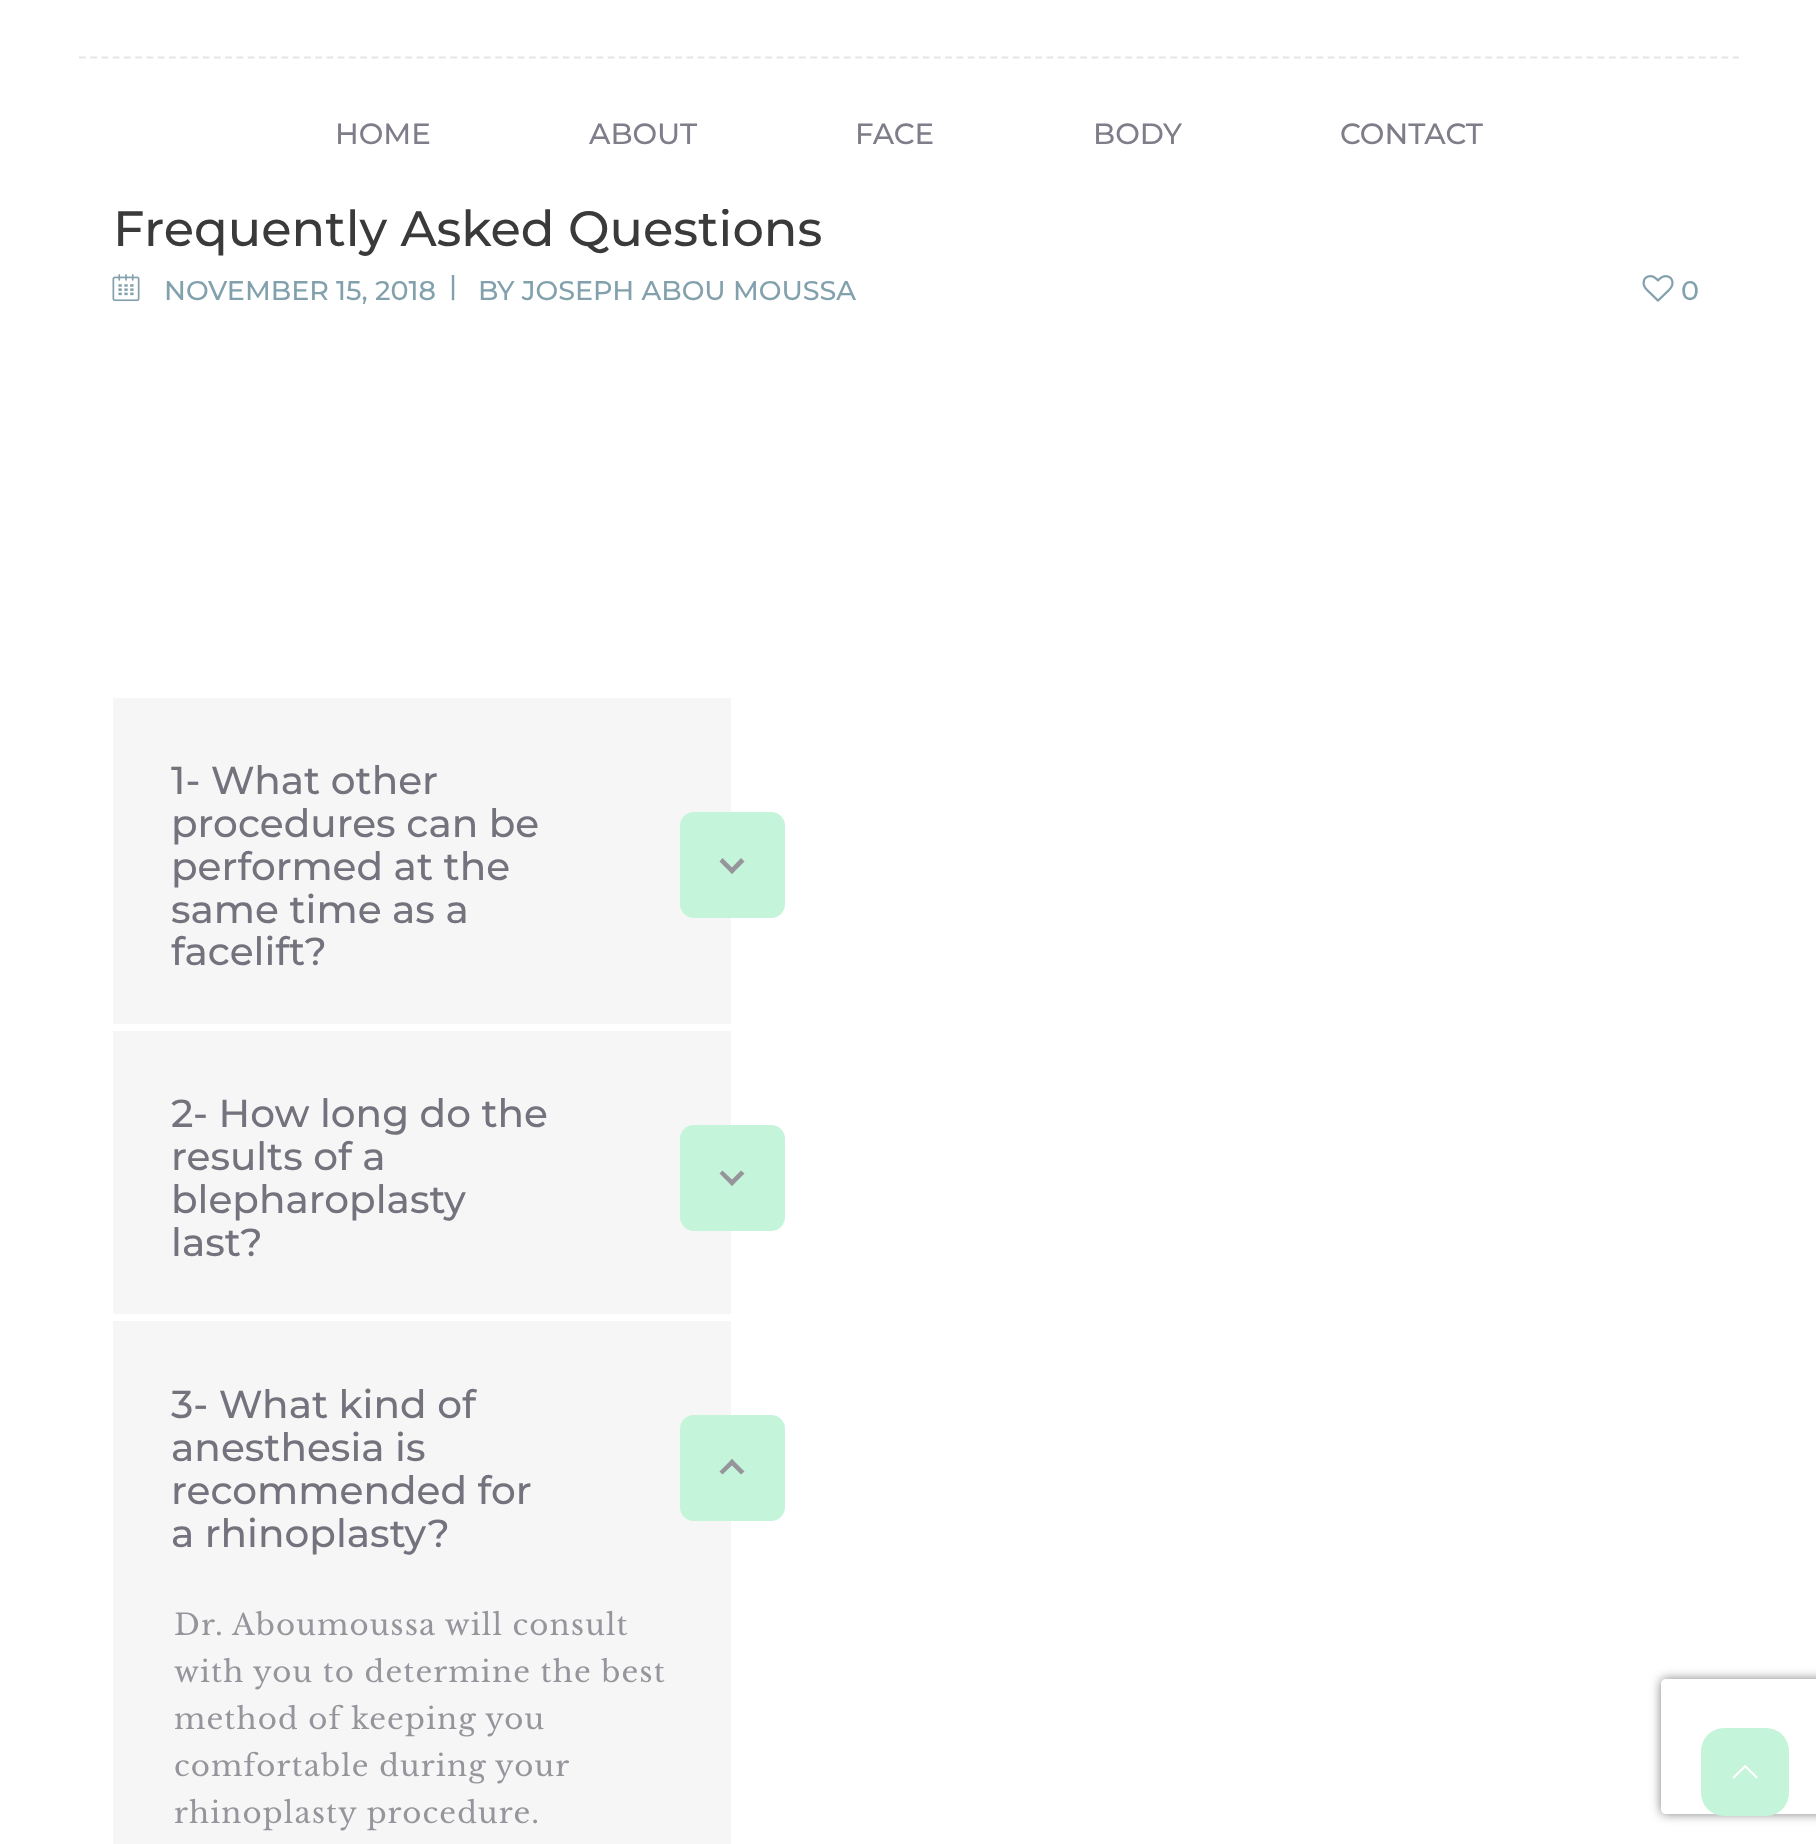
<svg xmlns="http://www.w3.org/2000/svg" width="1816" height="1844">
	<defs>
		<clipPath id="clip1"><path d="M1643 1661H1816V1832H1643ZM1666 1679H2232C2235 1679 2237 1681 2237 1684V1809C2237 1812 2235 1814 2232 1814H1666C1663 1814 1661 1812 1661 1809V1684C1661 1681 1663 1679 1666 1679Z" clip-rule="evenodd" /></clipPath>
	</defs>
	<rect width="100%" height="100%" fill="#FFFFFF" />
	<path d="M79 57.5H1739" fill="none" stroke="#E5E5E5" stroke-width="2.2" stroke-dasharray="6.75 4.5" />
	<text x="113" y="246" font-family="Montserrat" font-size="49.5" font-weight="500" fill="#3A3A3A">Frequently Asked Questions</text>
	<rect x="723" y="208" width="4" height="1" fill="#FFFFFF" />
	<g font-family="Montserrat" font-size="29.25" font-weight="500" fill="#7E7D89">
		<text x="335" y="144">HOME</text>
		<text x="589" y="144">ABOUT</text>
		<text x="855" y="144">FACE</text>
		<text x="1093" y="144">BODY</text>
		<text x="1340" y="144">CONTACT</text>
	</g>
	<image x="112" y="274" width="28" height="28" href="assets/img1.png" />
	<g font-family="Montserrat" font-size="27" font-weight="500" fill="#82A1AD">
		<text x="164" y="300">NOVEMBER 15, 2018</text>
		<text x="449" y="295">|</text>
		<text x="478" y="300">BY JOSEPH ABOU MOUSSA</text>
	</g>
	<image x="1642" y="275" width="32" height="27" href="assets/img2.png" />
	<text x="1681" y="300" font-family="Montserrat" font-size="27" font-weight="500" fill="#82A1AD">0</text>
	<rect x="113" y="698" width="618" height="326" fill="#F6F6F6" />
	<g font-family="Montserrat" font-size="39" font-weight="500" fill="#73727D">
		<text x="171" y="794">1- What other</text>
		<text x="171" y="837">procedures can be</text>
	</g>
	<rect x="680" y="812" width="105" height="106" rx="14" fill="#C4F4DA" />
	<path d="M741 858L744.5 861.5L732 874L729 870.5Z" fill="#96959C" />
	<path d="M722.5 858L735 870.5L732 874L719.5 861.5Z" fill="#96959C" />
	<g font-family="Montserrat" font-size="39" font-weight="500" fill="#73727D">
		<text x="171" y="880">performed at the</text>
		<text x="171" y="923">same time as a</text>
		<text x="171" y="965">facelift?</text>
	</g>
	<rect x="113" y="1031" width="618" height="283" fill="#F6F6F6" />
	<g font-family="Montserrat" font-size="39" font-weight="500" fill="#73727D">
		<text x="171" y="1127">2- How long do the</text>
		<text x="171" y="1170">results of a</text>
	</g>
	<rect x="680" y="1125" width="105" height="106" rx="14" fill="#C4F4DA" />
	<path d="M741 1170.5L744.5 1173.5L732 1186L729 1182.5Z" fill="#96959C" />
	<path d="M722.5 1170.5L735 1182.5L732 1186L719.5 1173.5Z" fill="#96959C" />
	<g font-family="Montserrat" font-size="39" font-weight="500" fill="#73727D">
		<text x="171" y="1213">blepharoplasty</text>
		<text x="171" y="1256">last?</text>
	</g>
	<rect x="113" y="1321" width="618" height="523" fill="#F6F6F6" />
	<g font-family="Montserrat" font-size="39" font-weight="500" fill="#73727D">
		<text x="171" y="1418">3- What kind of</text>
		<text x="171" y="1461">anesthesia is</text>
	</g>
	<rect x="680" y="1415" width="105" height="106" rx="14" fill="#C4F4DA" />
	<path d="M722.5 1474.5L719.5 1471.5L732 1459L735 1462.5Z" fill="#96959C" />
	<path d="M741 1474.5L729 1462.5L732 1459L744.5 1471.5Z" fill="#96959C" />
	<g font-family="Montserrat" font-size="39" font-weight="500" fill="#73727D">
		<text x="171" y="1504">recommended for</text>
		<text x="171" y="1547">a rhinoplasty?</text>
	</g>
	<g font-family="Libre Baskerville" font-size="29.25" letter-spacing="1.1" fill="#96959C">
		<text x="174" y="1635">Dr. Aboumoussa will consult</text>
		<text x="174" y="1682">with you to determine the best</text>
		<text x="174" y="1729">method of keeping you</text>
		<text x="174" y="1776">comfortable during your</text>
		<text x="174" y="1823">rhinoplasty procedure.</text>
	</g>
	<g clip-path="url(#clip1)">
		<rect x="1661" y="1679" width="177" height="135" rx="5" fill="#808080" filter="blur(5.5px)" />
	</g>
	<rect x="1701" y="1728" width="88" height="88" rx="23" fill="#C4F4DA" />
	<image x="1732" y="1765" width="26" height="14" href="assets/img3.png" />
</svg>
